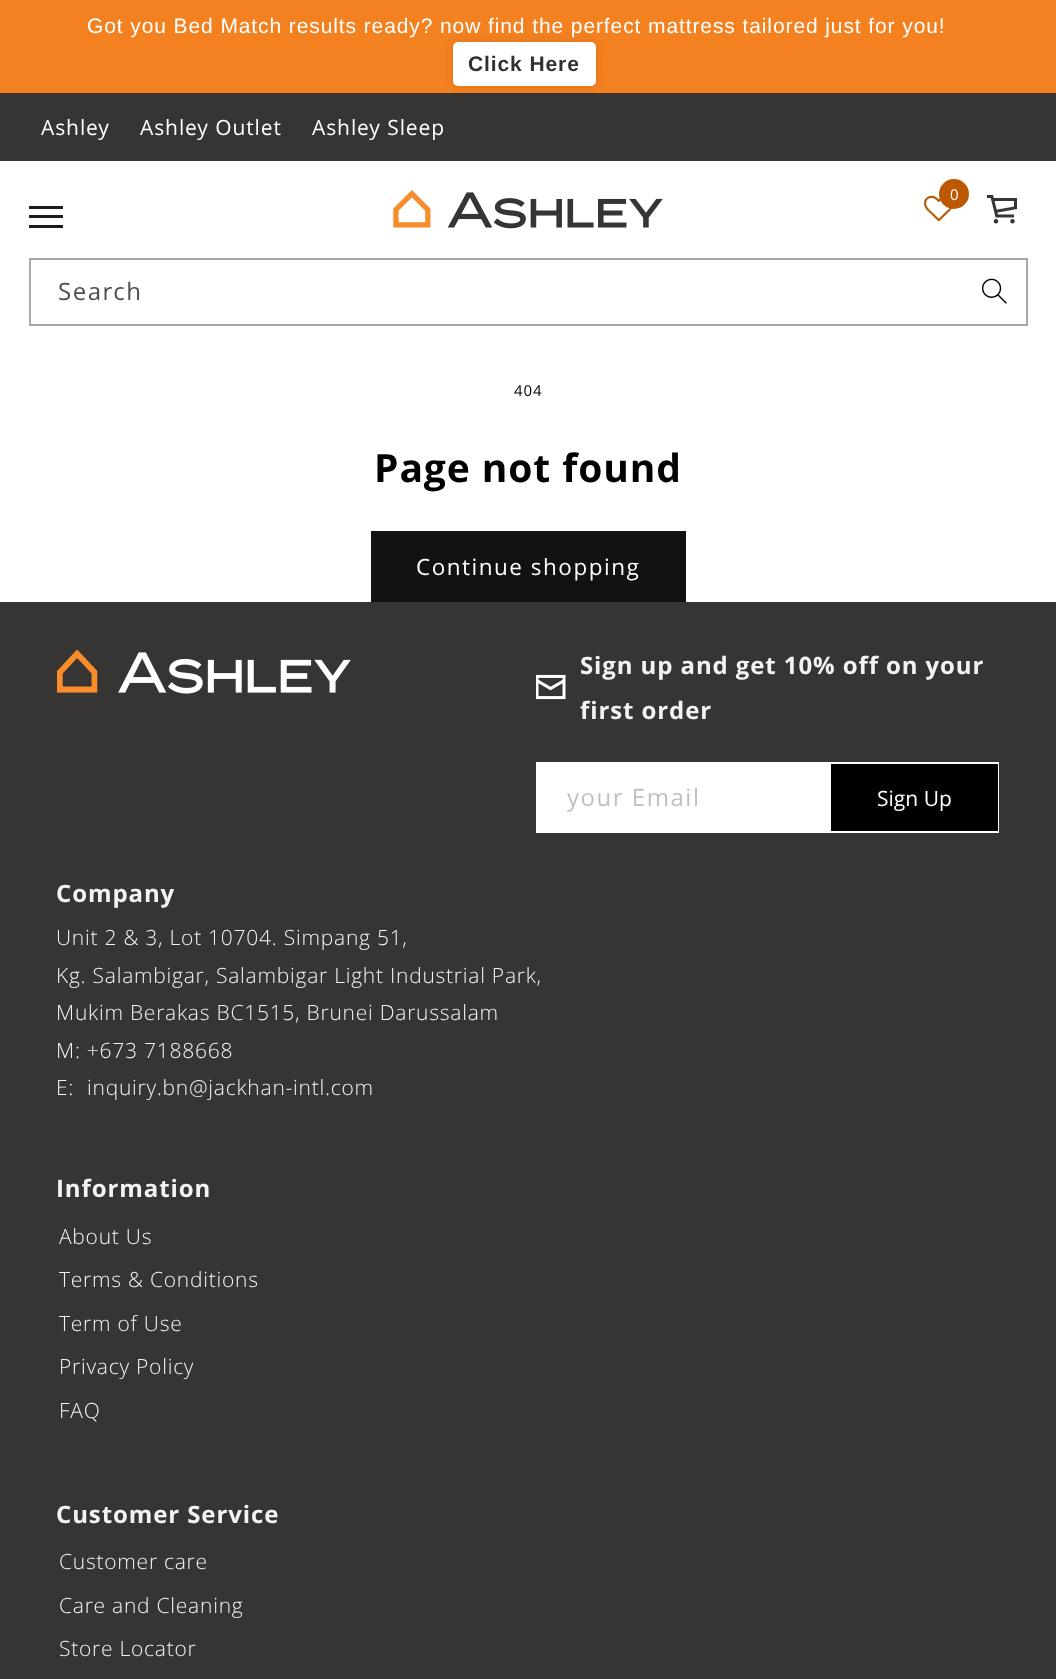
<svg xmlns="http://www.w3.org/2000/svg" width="1056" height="1679">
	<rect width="100%" height="100%" fill="#FFFFFF" />
	<rect x="0" y="0" width="1056" height="93" fill="#F48120" />
	<text x="87" y="33" font-family="Liberation Sans" font-size="21" letter-spacing="0.9" fill="#FFFFFF">Got you Bed Match results ready? now find the perfect mattress tailored just for you!</text>
	<rect x="0" y="93" width="1056" height="68" fill="#363534" />
	<rect x="453" y="42" width="143" height="44" rx="5" fill="#000000" fill-opacity="0.1" filter="blur(4px)" />
	<rect x="453" y="42" width="143" height="44" rx="5" fill="#FFFFFF" />
	<text x="468" y="71" font-family="Liberation Sans" font-size="21" font-weight="700" letter-spacing="0.9" fill="#303030">Click Here</text>
	<g font-family="Open Sans" font-size="21" letter-spacing="0.9" fill="#FFFFFF">
		<text x="41" y="135">Ashley</text>
		<text x="140" y="135">Ashley Outlet</text>
		<text x="312" y="135">Ashley Sleep</text>
	</g>
	<rect x="29" y="215" width="34" height="3" fill="#1D1D1B" />
	<rect x="29" y="206" width="34" height="3" fill="#1D1D1B" />
	<rect x="29" y="225" width="34" height="3" fill="#1D1D1B" />
	<image x="393" y="190" width="270" height="39" href="assets/img1.png" />
	<image x="924" y="195" width="28" height="27" href="assets/img2.png" />
	<circle cx="954" cy="194" r="15" fill="#BC5801" />
	<text x="950" y="200" font-family="Open Sans" font-size="15" fill="#FFFFFF">0</text>
	<image x="987" y="195" width="30" height="29" href="assets/img3.png" />
	<rect x="30" y="259" width="997" height="66" fill="none" stroke="#A8A8A8" stroke-width="2" />
	<text x="58" y="300" font-family="Open Sans" font-size="24" letter-spacing="1.5" fill="#4D4D4D">Search</text>
	<image x="981" y="278" width="26" height="26" href="assets/img4.png" />
	<text x="514" y="396" font-family="Open Sans" font-size="15" letter-spacing="0.9" fill="#000000">404</text>
	<text x="374" y="482" font-family="Open Sans" font-size="39" font-weight="700" letter-spacing="0.9" fill="#000000">Page not found</text>
	<rect x="371" y="531" width="315" height="71" fill="#121212" />
	<text x="416" y="575" font-family="Open Sans" font-size="22.5" letter-spacing="1.5" fill="#FFFFFF">Continue shopping</text>
	<rect x="0" y="602" width="1056" height="1077" fill="#363534" />
	<image x="57" y="650" width="294" height="44" href="assets/img5.png" />
	<text x="580" y="674" font-family="Open Sans" font-size="24" font-weight="700" letter-spacing="0.9" fill="#F3F3F3">Sign up and get 10% off on your</text>
	<image x="536" y="674" width="30" height="26" href="assets/img6.png" />
	<text x="580" y="719" font-family="Open Sans" font-size="24" font-weight="700" letter-spacing="0.9" fill="#F3F3F3">first order</text>
	<rect x="536" y="762" width="463" height="71" fill="#FFFFFF" />
	<text x="567" y="806" font-family="Open Sans" font-size="24" letter-spacing="1.5" fill="#C0C0C0">your Email</text>
	<rect x="831" y="764" width="167" height="67" fill="#000000" />
	<text x="877" y="806" font-family="Open Sans" font-size="21" fill="#FFFFFF">Sign Up</text>
	<text x="56" y="902" font-family="Open Sans" font-size="24" font-weight="700" letter-spacing="0.9" fill="#F3F3F3">Company</text>
	<g font-family="Open Sans" font-size="21" font-weight="300" letter-spacing="0.75" fill="#F3F3F3">
		<text x="56" y="945">Unit 2 &amp; 3, Lot 10704. Simpang 51,</text>
		<text x="56" y="983">Kg. Salambigar, Salambigar Light Industrial Park,</text>
		<text x="56" y="1020">Mukim Berakas BC1515, Brunei Darussalam</text>
		<text x="56" y="1058">M: +673 7188668</text>
		<text x="56" y="1095">E:</text>
		<text x="87" y="1095">inquiry.bn@jackhan-intl.com</text>
	</g>
	<text x="56" y="1197" font-family="Open Sans" font-size="24" font-weight="700" letter-spacing="0.9" fill="#F3F3F3">Information</text>
	<g font-family="Open Sans" font-size="21" font-weight="300" letter-spacing="0.75" fill="#F3F3F3">
		<text x="59" y="1244">About Us</text>
		<text x="59" y="1287">Terms &amp; Conditions</text>
		<text x="59" y="1331">Term of Use</text>
		<text x="59" y="1374">Privacy Policy</text>
		<text x="59" y="1418">FAQ</text>
	</g>
	<text x="56" y="1523" font-family="Open Sans" font-size="24" font-weight="700" letter-spacing="0.9" fill="#F3F3F3">Customer Service</text>
	<g font-family="Open Sans" font-size="21" font-weight="300" letter-spacing="0.75" fill="#F3F3F3">
		<text x="59" y="1569">Customer care</text>
		<text x="59" y="1613">Care and Cleaning</text>
		<text x="59" y="1656">Store Locator</text>
	</g>
</svg>
